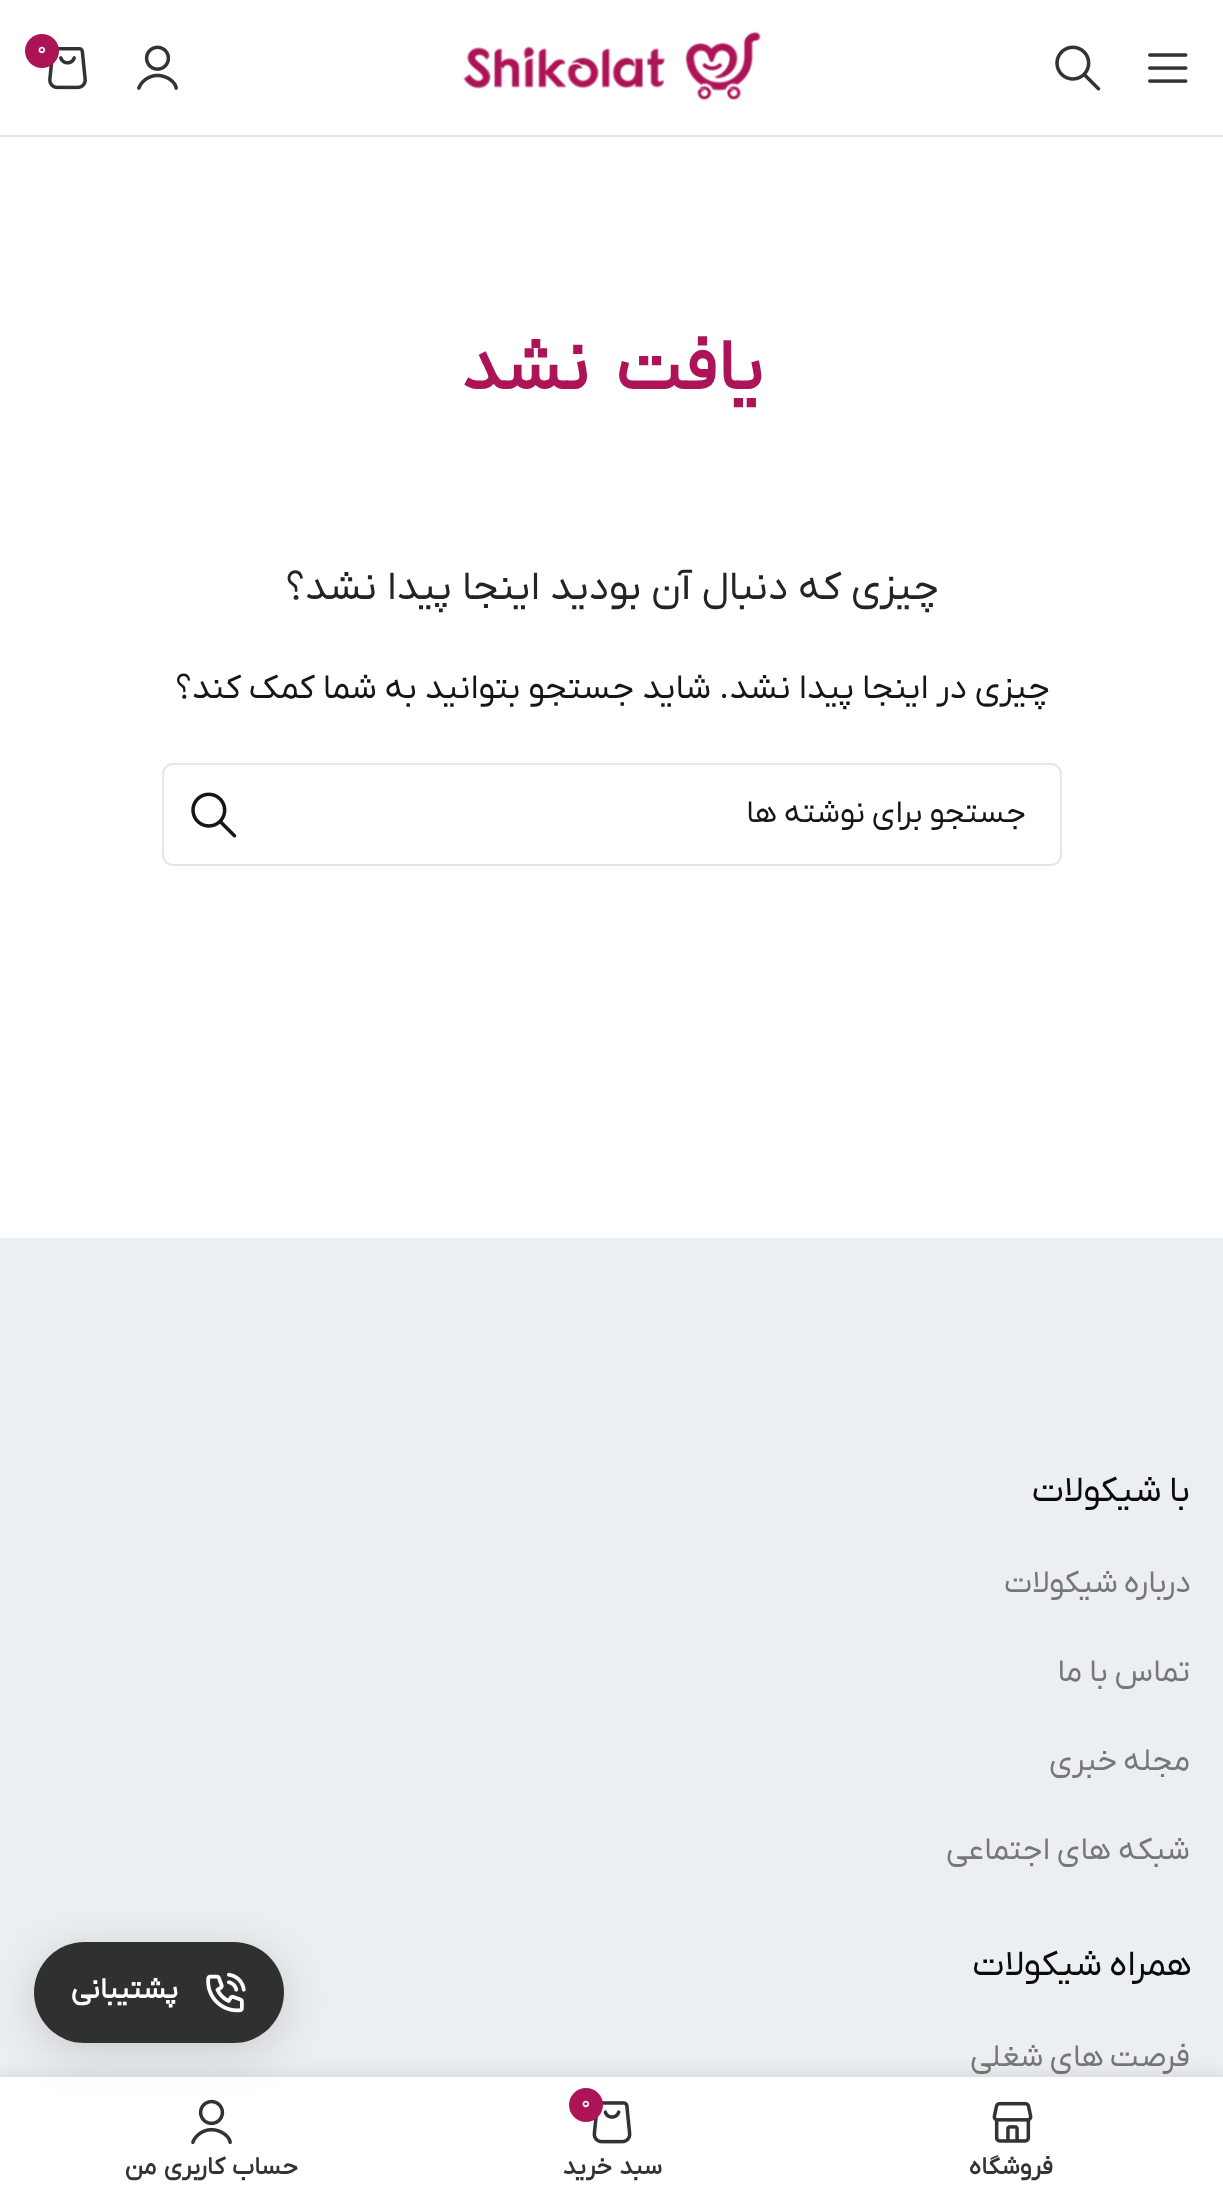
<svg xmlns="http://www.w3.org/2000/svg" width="1223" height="2200">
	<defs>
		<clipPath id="clip1"><path d="M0 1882H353V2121H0ZM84.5 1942H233.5C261.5 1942 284 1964.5 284 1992.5C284 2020.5 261.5 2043 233.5 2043H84.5C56.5 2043 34 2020.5 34 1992.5C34 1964.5 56.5 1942 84.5 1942Z" clip-rule="evenodd" /></clipPath>
	</defs>
	<rect width="100%" height="100%" fill="#FFFFFF" />
	<rect x="0" y="135" width="1223" height="2" fill="#E6E6E6" />
	<image x="1148" y="53" width="40" height="30" href="assets/img1.png" />
	<image x="1055" y="45" width="46" height="46" href="assets/img2.png" />
	<image x="463" y="31" width="298" height="70" href="assets/img3.png" />
	<image x="137" y="45" width="41" height="45" href="assets/img4.png" />
	<image x="48" y="47" width="39" height="43" href="assets/img5.png" />
	<circle cx="42" cy="51" r="17" fill="#AD1457" />
	<text x="37" y="54" font-family="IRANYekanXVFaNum" font-size="20" fill="#FFFFFF">0</text>
	<text x="763" y="389" word-spacing="9" font-family="IRANYekanXVFaNum" font-size="72" font-weight="700" direction="rtl" fill="#AD1457">یافت نشد</text>
	<text x="939" y="599" font-family="IRANYekanXVFaNum" font-size="40.5" direction="rtl" fill="#242424">چیزی که دنبال آن بودید اینجا پیدا نشد؟</text>
	<text x="1050" y="698" word-spacing="-0.75" font-family="IRANYekanXVFaNum" font-size="34.65" direction="rtl" fill="#161616">چیزی در اینجا پیدا نشد. شاید جستجو بتوانید به شما کمک کند؟</text>
	<rect x="163" y="764" width="898" height="101" rx="10" fill="none" stroke="#E6E6E6" stroke-width="2" />
	<text x="1026" y="822" word-spacing="-1" font-family="IRANYekanXVFaNum" font-size="31.5" direction="rtl" fill="#161616">جستجو برای نوشته ها</text>
	<image x="191" y="792" width="46" height="46" href="assets/img6.png" />
	<rect x="0" y="1238" width="1223" height="839" fill="#ECEFF1" />
	<text x="1190" y="1501" word-spacing="-2" font-family="IRANYekanXVFaNum" font-size="36" direction="rtl" fill="#0A0A0A">با شیکولات</text>
	<g font-family="IRANYekanXVFaNum" font-size="31.5" direction="rtl" fill="#777777">
		<text x="1191" y="1592" word-spacing="-2">درباره شیکولات</text>
		<text x="1190" y="1681" word-spacing="-1">تماس با ما</text>
		<text x="1190" y="1770" word-spacing="-2">مجله خبری</text>
		<text x="1190" y="1859" word-spacing="-1">شبکه های اجتماعی</text>
	</g>
	<text x="1192" y="1975" word-spacing="-2" font-family="IRANYekanXVFaNum" font-size="36" direction="rtl" fill="#0A0A0A">همراه شیکولات</text>
	<text x="1190" y="2066" word-spacing="-2" font-family="IRANYekanXVFaNum" font-size="31.5" direction="rtl" fill="#777777">فرصت های شغلی</text>
	<rect x="0" y="2077" width="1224" height="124" fill="#000000" fill-opacity="0.12" filter="blur(10px)" />
	<rect x="0" y="2077" width="1223" height="123" fill="#FFFFFF" />
	<image x="191" y="2099" width="41" height="46" href="assets/img10.png" />
	<g clip-path="url(#clip1)">
		<rect x="34" y="1951" width="250" height="101" rx="50.5" fill="#000000" fill-opacity="0.15" filter="blur(22.5px)" />
	</g>
	<rect x="34" y="1942" width="250" height="101" rx="50.5" fill="#000000" fill-opacity="0.8" />
	<image x="206" y="1972" width="40" height="41" href="assets/img7.png" />
	<text x="178" y="1998" font-family="IRANYekanXVFaNum" font-size="29" font-weight="700" direction="rtl" fill="#FFFFFF">پشتیبانی</text>
	<image x="992" y="2101" width="41" height="42" href="assets/img8.png" />
	<text x="1053" y="2174" font-family="IRANYekanXVFaNum" font-size="24.75" font-weight="700" direction="rtl" fill="#333333">فروشگاه</text>
	<image x="592" y="2101" width="40" height="43" href="assets/img9.png" />
	<circle cx="586" cy="2105" r="17" fill="#AD1457" />
	<text x="581" y="2108" font-family="IRANYekanXVFaNum" font-size="20" fill="#FFFFFF">0</text>
	<g font-family="IRANYekanXVFaNum" font-size="24.75" font-weight="700" direction="rtl" fill="#333333">
		<text x="662" y="2174" word-spacing="1">سبد خرید</text>
		<text x="298" y="2174" word-spacing="1">حساب کاربری من</text>
	</g>
</svg>
